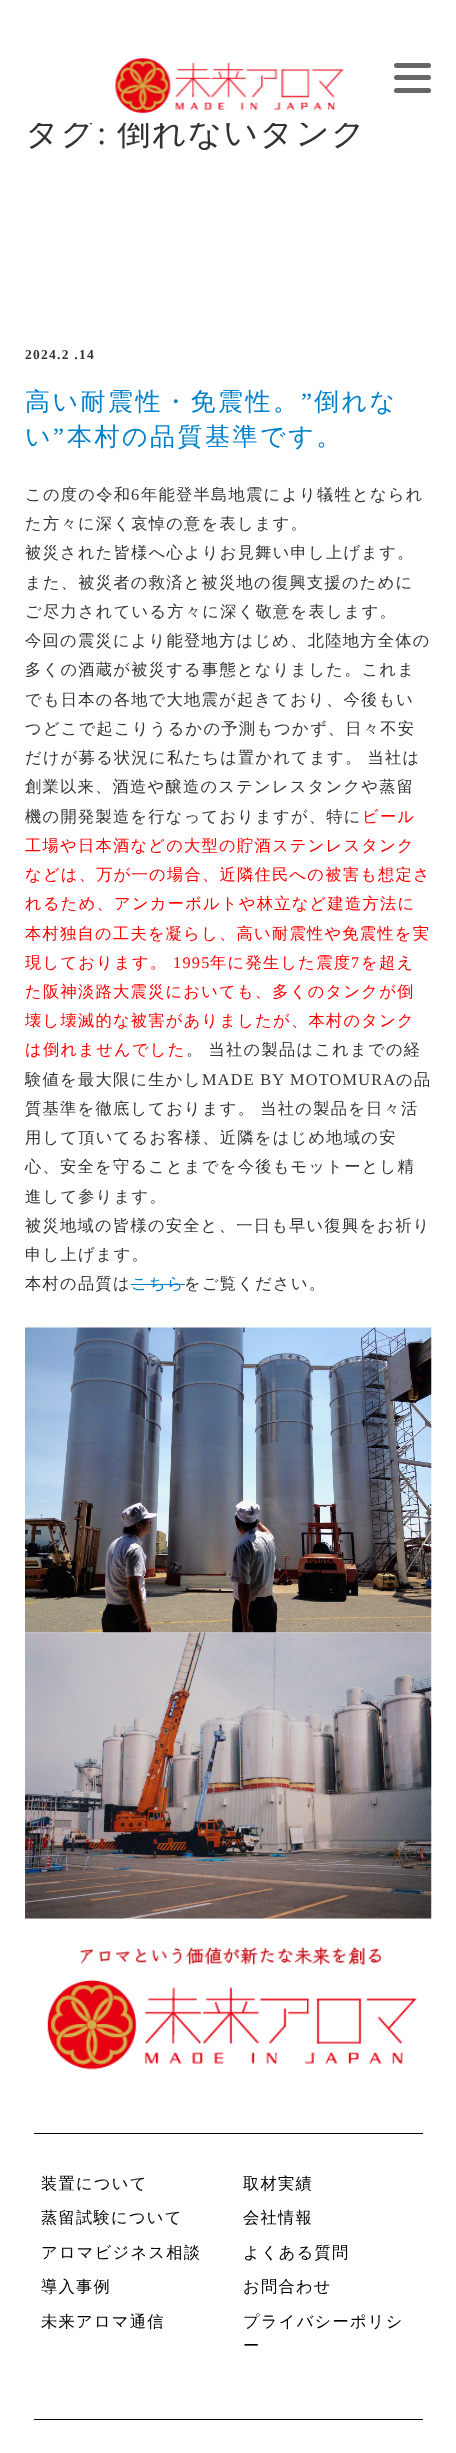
<svg xmlns="http://www.w3.org/2000/svg" width="456" height="2453">
	<rect width="100%" height="100%" fill="#FFFFFF" />
	<g font-family="WenQuanYi Zen Hei" font-size="33.75" font-weight="500" letter-spacing="1.25" fill="#333333">
		<text x="25" y="144">タグ</text>
		<text x="117" y="144">倒れないタンク</text>
	</g>
	<rect x="38" y="117" width="311" height="6" fill="#FFFFFF" />
	<image x="115" y="58" width="229" height="56" href="assets/img1.png" />
	<rect x="394" y="63" width="37" height="5" rx="2.5" fill="#666666" />
	<rect x="394" y="75" width="37" height="5" rx="2.5" fill="#666666" />
	<rect x="394" y="88" width="37" height="5" rx="2.5" fill="#666666" />
	<text x="97" y="144" font-family="Liberation Serif" font-size="33.75" letter-spacing="1.25" fill="#333333">:</text>
	<text x="25" y="359" font-family="Liberation Serif" font-size="13.5" font-weight="700" letter-spacing="1.25" fill="#333333">2024.2 .14</text>
	<text x="25" y="410" font-family="WenQuanYi Zen Hei" font-size="25" font-weight="500" letter-spacing="2.5" fill="#0081CC">高い耐震性・免震性。</text>
	<text x="301" y="410" font-family="Liberation Serif" font-size="25" letter-spacing="2.5" fill="#0081CC">”</text>
	<g font-family="WenQuanYi Zen Hei" font-size="25" font-weight="500" letter-spacing="2.5" fill="#0081CC">
		<text x="314" y="410">倒れな</text>
		<text x="25" y="445">い</text>
	</g>
	<text x="53" y="445" font-family="Liberation Serif" font-size="25" letter-spacing="2.5" fill="#0081CC">”</text>
	<text x="67" y="445" font-family="WenQuanYi Zen Hei" font-size="25" font-weight="500" letter-spacing="2.5" fill="#0081CC">本村の品質基準です。</text>
	<text x="25" y="500" font-family="WenQuanYi Zen Hei" font-size="16.25" font-weight="500" letter-spacing="1.25" fill="#333333">この度の令和</text>
	<text x="131" y="500" font-family="Liberation Serif" font-size="16.25" letter-spacing="1.25" fill="#333333">6</text>
	<g font-family="WenQuanYi Zen Hei" font-size="16.25" font-weight="500" letter-spacing="1.25" fill="#333333">
		<text x="141" y="500">年能登半島地震により犠牲となられ</text>
		<text x="25" y="529">た方々に深く哀悼の意を表します。</text>
		<text x="25" y="558">被災された皆様へ心よりお見舞い申し上げます。</text>
		<text x="25" y="588">また、被災者の救済と被災地の復興支援のために</text>
		<text x="25" y="617">ご尽力されている方々に深く敬意を表します。</text>
		<text x="25" y="646">今回の震災により能登地方はじめ、北陸地方全体の</text>
		<text x="25" y="675">多くの酒蔵が被災する事態となりました。これま</text>
		<text x="25" y="705">でも日本の各地で大地震が起きており、今後もい</text>
		<text x="25" y="734">つどこで起こりうるかの予測もつかず、日々不安</text>
		<text x="25" y="763" word-spacing="-1">だけが募る状況に私たちは置かれてます。 当社は</text>
		<text x="25" y="792">創業以来、酒造や醸造のステンレスタンクや蒸留</text>
		<text x="25" y="822">機の開発製造を行なっておりますが、特に</text>
	</g>
	<g font-family="WenQuanYi Zen Hei" font-size="16.25" font-weight="500" letter-spacing="1.25" fill="#FF0000">
		<text x="362" y="822">ビール</text>
		<text x="25" y="851">工場や日本酒などの大型の貯酒ステンレスタンク</text>
		<text x="25" y="880">などは、万が一の場合、近隣住民への被害も想定さ</text>
		<text x="25" y="909">れるため、アンカーボルトや林立など建造方法に</text>
		<text x="25" y="939">本村独自の工夫を凝らし、高い耐震性や免震性を実</text>
		<text x="25" y="968">現しております。</text>
	</g>
	<text x="173" y="968" font-family="Liberation Serif" font-size="16.25" letter-spacing="1.25" fill="#FF0000">1995</text>
	<text x="210" y="968" font-family="WenQuanYi Zen Hei" font-size="16.25" font-weight="500" letter-spacing="1.25" fill="#FF0000">年に発生した震度</text>
	<text x="351" y="968" font-family="Liberation Serif" font-size="16.25" letter-spacing="1.25" fill="#FF0000">7</text>
	<g font-family="WenQuanYi Zen Hei" font-size="16.25" font-weight="500" letter-spacing="1.25" fill="#FF0000">
		<text x="361" y="968">を超え</text>
		<text x="25" y="997">た阪神淡路大震災においても、多くのタンクが倒</text>
		<text x="25" y="1026">壊し壊滅的な被害がありましたが、本村のタンク</text>
		<text x="25" y="1055">は倒れませんでした</text>
	</g>
	<g font-family="WenQuanYi Zen Hei" font-size="16.25" font-weight="500" letter-spacing="1.25" fill="#333333">
		<text x="186" y="1055" word-spacing="-1">。 当社の製品はこれまでの経</text>
		<text x="25" y="1085">験値を最大限に生かし</text>
	</g>
	<text x="202" y="1085" font-family="Liberation Serif" font-size="16.25" letter-spacing="1.25" fill="#333333">MADE BY MOTOMURA</text>
	<g font-family="WenQuanYi Zen Hei" font-size="16.25" font-weight="500" letter-spacing="1.25" fill="#333333">
		<text x="396" y="1085">の品</text>
		<text x="25" y="1114" word-spacing="-1">質基準を徹底しております。 当社の製品を日々活</text>
		<text x="25" y="1143">用して頂いてるお客様、近隣をはじめ地域の安</text>
		<text x="25" y="1172">心、安全を守ることまでを今後もモットーとし精</text>
		<text x="25" y="1202">進して参ります。</text>
		<text x="25" y="1231">被災地域の皆様の安全と、一日も早い復興をお祈り</text>
		<text x="25" y="1260">申し上げます。</text>
		<text x="25" y="1289">本村の品質は</text>
	</g>
	<text x="131" y="1289" font-family="WenQuanYi Zen Hei" font-size="16.25" font-weight="500" letter-spacing="1.25" fill="#0081CC">こちら</text>
	<rect x="131" y="1284" width="54" height="1" fill="#0081CC" />
	<text x="184" y="1289" font-family="WenQuanYi Zen Hei" font-size="16.25" font-weight="500" letter-spacing="1.25" fill="#333333">をご覧ください。</text>
	<image x="25" y="1327" width="407" height="306" href="assets/img2.png" />
	<image x="25" y="1632" width="407" height="287" href="assets/img3.png" />
	<image x="47" y="1946" width="370" height="124" href="assets/img4.png" />
	<rect x="34" y="2133" width="389" height="1" fill="#000000" />
	<g font-family="WenQuanYi Zen Hei" font-size="16.25" font-weight="500" letter-spacing="1.25" fill="#000000">
		<text x="41" y="2189">装置について</text>
		<text x="41" y="2223">蒸留試験について</text>
		<text x="41" y="2258">アロマビジネス相談</text>
		<text x="41" y="2292">導入事例</text>
		<text x="41" y="2327">未来アロマ通信</text>
		<text x="243" y="2189">取材実績</text>
		<text x="243" y="2223">会社情報</text>
		<text x="243" y="2258">よくある質問</text>
		<text x="243" y="2292">お問合わせ</text>
		<text x="243" y="2327">プライバシーポリシ</text>
		<text x="243" y="2351">ー</text>
	</g>
	<rect x="34" y="2419" width="389" height="1" fill="#000000" />
</svg>
